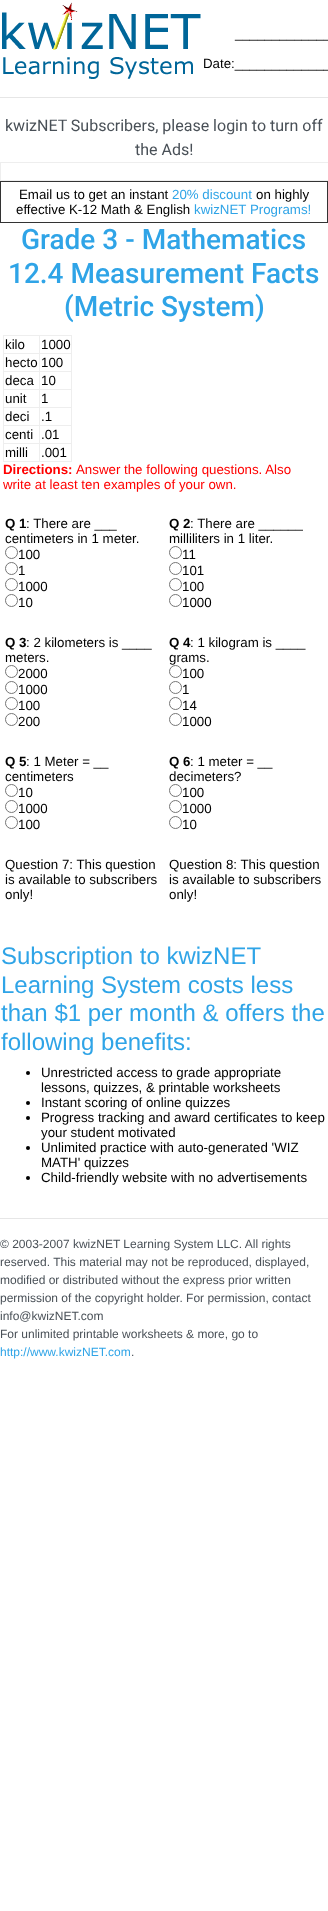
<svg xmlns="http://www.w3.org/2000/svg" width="328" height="1911">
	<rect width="100%" height="100%" fill="#FFFFFF" />
	<image x="2" y="2" width="199" height="77" href="assets/img1.png" />
	<g font-family="Liberation Sans" font-size="13.3" fill="#000000">
		<text x="235" y="38">_____________</text>
		<text x="203" y="68">Date:_____________</text>
	</g>
	<rect x="0" y="97" width="328" height="1" fill="#E6E6E6" />
	<g font-family="Roboto" font-size="16" fill="#495057">
		<text x="5" y="131">kwizNET Subscribers, please login to turn off</text>
		<text x="135" y="155">the Ads!</text>
	</g>
	<rect x="0" y="162" width="328" height="1" fill="#EEEEEE" />
	<rect x="0" y="180" width="328" height="1" fill="#EEEEEE" />
	<rect x="0" y="162" width="1" height="19" fill="#EEEEEE" />
	<rect x="0" y="181" width="328" height="42" fill="#333333" />
	<rect x="1" y="182" width="326" height="40" fill="#FFFFFF" />
	<text x="19" y="199" font-family="Liberation Sans" font-size="13.3" fill="#000000">Email us to get an instant</text>
	<text x="172" y="199" font-family="Liberation Sans" font-size="13.3" fill="#2FA4E7">20% discount</text>
	<g font-family="Liberation Sans" font-size="13.3" fill="#000000">
		<text x="256" y="199">on highly</text>
		<text x="16" y="214">effective K-12 Math &amp; English</text>
	</g>
	<text x="194" y="214" font-family="Liberation Sans" font-size="13.3" fill="#2FA4E7">kwizNET Programs!</text>
	<g font-family="Roboto" font-size="28" font-weight="500" fill="#2FA4E7">
		<text x="21" y="249">Grade 3 - Mathematics</text>
		<text x="8" y="283">12.4 Measurement Facts</text>
		<text x="64" y="316">(Metric System)</text>
	</g>
	<rect x="39" y="335" width="33" height="1" fill="#EEEEEE" />
	<rect x="39" y="353" width="33" height="1" fill="#EEEEEE" />
	<rect x="39" y="371" width="33" height="1" fill="#EEEEEE" />
	<rect x="39" y="389" width="33" height="1" fill="#EEEEEE" />
	<rect x="39" y="407" width="33" height="1" fill="#EEEEEE" />
	<rect x="39" y="425" width="33" height="1" fill="#EEEEEE" />
	<rect x="39" y="443" width="33" height="1" fill="#EEEEEE" />
	<rect x="71" y="443" width="1" height="19" fill="#EEEEEE" />
	<rect x="39" y="461" width="33" height="1" fill="#EEEEEE" />
	<rect x="39" y="443" width="1" height="19" fill="#EEEEEE" />
	<rect x="3" y="443" width="37" height="1" fill="#EEEEEE" />
	<rect x="39" y="425" width="1" height="19" fill="#EEEEEE" />
	<rect x="3" y="425" width="37" height="1" fill="#EEEEEE" />
	<rect x="39" y="407" width="1" height="19" fill="#EEEEEE" />
	<rect x="3" y="407" width="37" height="1" fill="#EEEEEE" />
	<rect x="39" y="389" width="1" height="19" fill="#EEEEEE" />
	<rect x="3" y="389" width="37" height="1" fill="#EEEEEE" />
	<rect x="39" y="371" width="1" height="19" fill="#EEEEEE" />
	<rect x="3" y="371" width="37" height="1" fill="#EEEEEE" />
	<rect x="39" y="353" width="1" height="19" fill="#EEEEEE" />
	<rect x="3" y="353" width="37" height="1" fill="#EEEEEE" />
	<rect x="39" y="335" width="1" height="19" fill="#EEEEEE" />
	<rect x="3" y="335" width="37" height="1" fill="#EEEEEE" />
	<rect x="3" y="461" width="37" height="1" fill="#EEEEEE" />
	<rect x="3" y="443" width="1" height="19" fill="#EEEEEE" />
	<rect x="3" y="425" width="1" height="19" fill="#EEEEEE" />
	<rect x="3" y="407" width="1" height="19" fill="#EEEEEE" />
	<rect x="3" y="389" width="1" height="19" fill="#EEEEEE" />
	<rect x="3" y="371" width="1" height="19" fill="#EEEEEE" />
	<rect x="3" y="353" width="1" height="19" fill="#EEEEEE" />
	<rect x="3" y="335" width="1" height="19" fill="#EEEEEE" />
	<text x="5" y="349" font-family="Liberation Sans" font-size="13.3" fill="#000000">kilo</text>
	<rect x="71" y="425" width="1" height="19" fill="#EEEEEE" />
	<rect x="71" y="407" width="1" height="19" fill="#EEEEEE" />
	<rect x="71" y="389" width="1" height="19" fill="#EEEEEE" />
	<rect x="71" y="371" width="1" height="19" fill="#EEEEEE" />
	<rect x="71" y="353" width="1" height="19" fill="#EEEEEE" />
	<rect x="71" y="335" width="1" height="19" fill="#EEEEEE" />
	<g font-family="Liberation Sans" font-size="13.3" fill="#000000">
		<text x="41" y="349">1000</text>
		<text x="5" y="367">hecto</text>
		<text x="41" y="367">100</text>
		<text x="5" y="385">deca</text>
		<text x="41" y="385">10</text>
		<text x="5" y="403">unit</text>
		<text x="41" y="403">1</text>
		<text x="5" y="421">deci</text>
		<text x="41" y="421">.1</text>
		<text x="5" y="439">centi</text>
		<text x="41" y="439">.01</text>
		<text x="5" y="457">milli</text>
		<text x="41" y="457">.001</text>
	</g>
	<text x="3" y="474" font-family="Liberation Sans" font-size="13.3" font-weight="700" fill="#FF0000">Directions:</text>
	<g font-family="Liberation Sans" font-size="13.3" fill="#FF0000">
		<text x="76" y="474">Answer the following questions. Also</text>
		<text x="3" y="489">write at least ten examples of your own.</text>
	</g>
	<text x="5" y="528" font-family="Liberation Sans" font-size="13.3" font-weight="700" fill="#000000">Q 1</text>
	<g font-family="Liberation Sans" font-size="13.3" fill="#000000">
		<text x="26" y="528">: There are ___</text>
		<text x="5" y="543">centimeters in 1 meter.</text>
	</g>
	<circle cx="11.5" cy="552.5" r="6" fill="none" stroke="#767676" />
	<text x="18" y="559" font-family="Liberation Sans" font-size="13.3" fill="#000000">100</text>
	<circle cx="11.5" cy="568.5" r="6" fill="none" stroke="#767676" />
	<text x="18" y="575" font-family="Liberation Sans" font-size="13.3" fill="#000000">1</text>
	<circle cx="11.5" cy="584.5" r="6" fill="none" stroke="#767676" />
	<text x="18" y="591" font-family="Liberation Sans" font-size="13.3" fill="#000000">1000</text>
	<circle cx="11.5" cy="600.5" r="6" fill="none" stroke="#767676" />
	<text x="18" y="607" font-family="Liberation Sans" font-size="13.3" fill="#000000">10</text>
	<text x="169" y="528" font-family="Liberation Sans" font-size="13.3" font-weight="700" fill="#000000">Q 2</text>
	<g font-family="Liberation Sans" font-size="13.3" fill="#000000">
		<text x="190" y="528">: There are ______</text>
		<text x="169" y="543">milliliters in 1 liter.</text>
	</g>
	<circle cx="175.5" cy="552.5" r="6" fill="none" stroke="#767676" />
	<text x="182" y="559" font-family="Liberation Sans" font-size="13.3" fill="#000000">11</text>
	<circle cx="175.5" cy="568.5" r="6" fill="none" stroke="#767676" />
	<text x="182" y="575" font-family="Liberation Sans" font-size="13.3" fill="#000000">101</text>
	<circle cx="175.5" cy="584.5" r="6" fill="none" stroke="#767676" />
	<text x="182" y="591" font-family="Liberation Sans" font-size="13.3" fill="#000000">100</text>
	<circle cx="175.5" cy="600.5" r="6" fill="none" stroke="#767676" />
	<text x="182" y="607" font-family="Liberation Sans" font-size="13.3" fill="#000000">1000</text>
	<text x="5" y="647" font-family="Liberation Sans" font-size="13.3" font-weight="700" fill="#000000">Q 3</text>
	<g font-family="Liberation Sans" font-size="13.3" fill="#000000">
		<text x="26" y="647">: 2 kilometers is ____</text>
		<text x="5" y="662">meters.</text>
	</g>
	<circle cx="11.5" cy="671.5" r="6" fill="none" stroke="#767676" />
	<text x="18" y="678" font-family="Liberation Sans" font-size="13.3" fill="#000000">2000</text>
	<circle cx="11.5" cy="687.5" r="6" fill="none" stroke="#767676" />
	<text x="18" y="694" font-family="Liberation Sans" font-size="13.3" fill="#000000">1000</text>
	<circle cx="11.5" cy="703.5" r="6" fill="none" stroke="#767676" />
	<text x="18" y="710" font-family="Liberation Sans" font-size="13.3" fill="#000000">100</text>
	<circle cx="11.5" cy="719.5" r="6" fill="none" stroke="#767676" />
	<text x="18" y="726" font-family="Liberation Sans" font-size="13.3" fill="#000000">200</text>
	<text x="169" y="647" font-family="Liberation Sans" font-size="13.3" font-weight="700" fill="#000000">Q 4</text>
	<g font-family="Liberation Sans" font-size="13.3" fill="#000000">
		<text x="190" y="647">: 1 kilogram is ____</text>
		<text x="169" y="662">grams.</text>
	</g>
	<circle cx="175.5" cy="671.5" r="6" fill="none" stroke="#767676" />
	<text x="182" y="678" font-family="Liberation Sans" font-size="13.3" fill="#000000">100</text>
	<circle cx="175.5" cy="687.5" r="6" fill="none" stroke="#767676" />
	<text x="182" y="694" font-family="Liberation Sans" font-size="13.3" fill="#000000">1</text>
	<circle cx="175.5" cy="703.5" r="6" fill="none" stroke="#767676" />
	<text x="182" y="710" font-family="Liberation Sans" font-size="13.3" fill="#000000">14</text>
	<circle cx="175.5" cy="719.5" r="6" fill="none" stroke="#767676" />
	<text x="182" y="726" font-family="Liberation Sans" font-size="13.3" fill="#000000">1000</text>
	<text x="5" y="766" font-family="Liberation Sans" font-size="13.3" font-weight="700" fill="#000000">Q 5</text>
	<g font-family="Liberation Sans" font-size="13.3" fill="#000000">
		<text x="26" y="766">: 1 Meter = __</text>
		<text x="5" y="781">centimeters</text>
	</g>
	<circle cx="11.5" cy="790.5" r="6" fill="none" stroke="#767676" />
	<text x="18" y="797" font-family="Liberation Sans" font-size="13.3" fill="#000000">10</text>
	<circle cx="11.5" cy="806.5" r="6" fill="none" stroke="#767676" />
	<text x="18" y="813" font-family="Liberation Sans" font-size="13.3" fill="#000000">1000</text>
	<circle cx="11.5" cy="822.5" r="6" fill="none" stroke="#767676" />
	<text x="18" y="829" font-family="Liberation Sans" font-size="13.3" fill="#000000">100</text>
	<text x="169" y="766" font-family="Liberation Sans" font-size="13.3" font-weight="700" fill="#000000">Q 6</text>
	<g font-family="Liberation Sans" font-size="13.3" fill="#000000">
		<text x="190" y="766">: 1 meter = __</text>
		<text x="169" y="781">decimeters?</text>
	</g>
	<circle cx="175.5" cy="790.5" r="6" fill="none" stroke="#767676" />
	<text x="182" y="797" font-family="Liberation Sans" font-size="13.3" fill="#000000">100</text>
	<circle cx="175.5" cy="806.5" r="6" fill="none" stroke="#767676" />
	<text x="182" y="813" font-family="Liberation Sans" font-size="13.3" fill="#000000">1000</text>
	<circle cx="175.5" cy="822.5" r="6" fill="none" stroke="#767676" />
	<g font-family="Liberation Sans" font-size="13.3" fill="#000000">
		<text x="182" y="829">10</text>
		<text x="5" y="869">Question 7: This question</text>
		<text x="5" y="884">is available to subscribers</text>
		<text x="5" y="899">only!</text>
		<text x="169" y="869">Question 8: This question</text>
		<text x="169" y="884">is available to subscribers</text>
		<text x="169" y="899">only!</text>
	</g>
	<g font-family="Liberation Sans" font-size="24" fill="#2FA4E7">
		<text x="1" y="964">Subscription to kwizNET</text>
		<text x="1" y="993">Learning System costs less</text>
		<text x="1" y="1021">than $1 per month &amp; offers the</text>
		<text x="1" y="1050">following benefits:</text>
	</g>
	<circle cx="28" cy="1073" r="2" fill="#000000" />
	<g font-family="Liberation Sans" font-size="13.3" fill="#000000">
		<text x="41" y="1077">Unrestricted access to grade appropriate</text>
		<text x="41" y="1092">lessons, quizzes, &amp; printable worksheets</text>
	</g>
	<circle cx="28" cy="1103" r="2" fill="#000000" />
	<text x="41" y="1107" font-family="Liberation Sans" font-size="13.3" fill="#000000">Instant scoring of online quizzes</text>
	<circle cx="28" cy="1118" r="2" fill="#000000" />
	<g font-family="Liberation Sans" font-size="13.3" fill="#000000">
		<text x="41" y="1122">Progress tracking and award certificates to keep</text>
		<text x="41" y="1137">your student motivated</text>
	</g>
	<circle cx="28" cy="1148" r="2" fill="#000000" />
	<g font-family="Liberation Sans" font-size="13.3" fill="#000000">
		<text x="41" y="1152">Unlimited practice with auto-generated 'WIZ</text>
		<text x="41" y="1167">MATH' quizzes</text>
	</g>
	<circle cx="28" cy="1178" r="2" fill="#000000" />
	<text x="41" y="1182" font-family="Liberation Sans" font-size="13.3" fill="#000000">Child-friendly website with no advertisements</text>
	<rect x="0" y="1218" width="328" height="1" fill="#E6E6E6" />
	<g font-family="Liberation Sans" font-size="12" fill="#495057">
		<text x="0" y="1248">© 2003-2007 kwizNET Learning System LLC. All rights</text>
		<text x="0" y="1266">reserved. This material may not be reproduced, displayed,</text>
		<text x="0" y="1284">modified or distributed without the express prior written</text>
		<text x="0" y="1302">permission of the copyright holder. For permission, contact</text>
		<text x="0" y="1320">info@kwizNET.com</text>
		<text x="0" y="1338">For unlimited printable worksheets &amp; more, go to</text>
	</g>
	<text x="0" y="1356" font-family="Liberation Sans" font-size="12" fill="#2FA4E7">http://www.kwizNET.com</text>
	<text x="131" y="1356" font-family="Liberation Sans" font-size="12" fill="#495057">.</text>
</svg>
